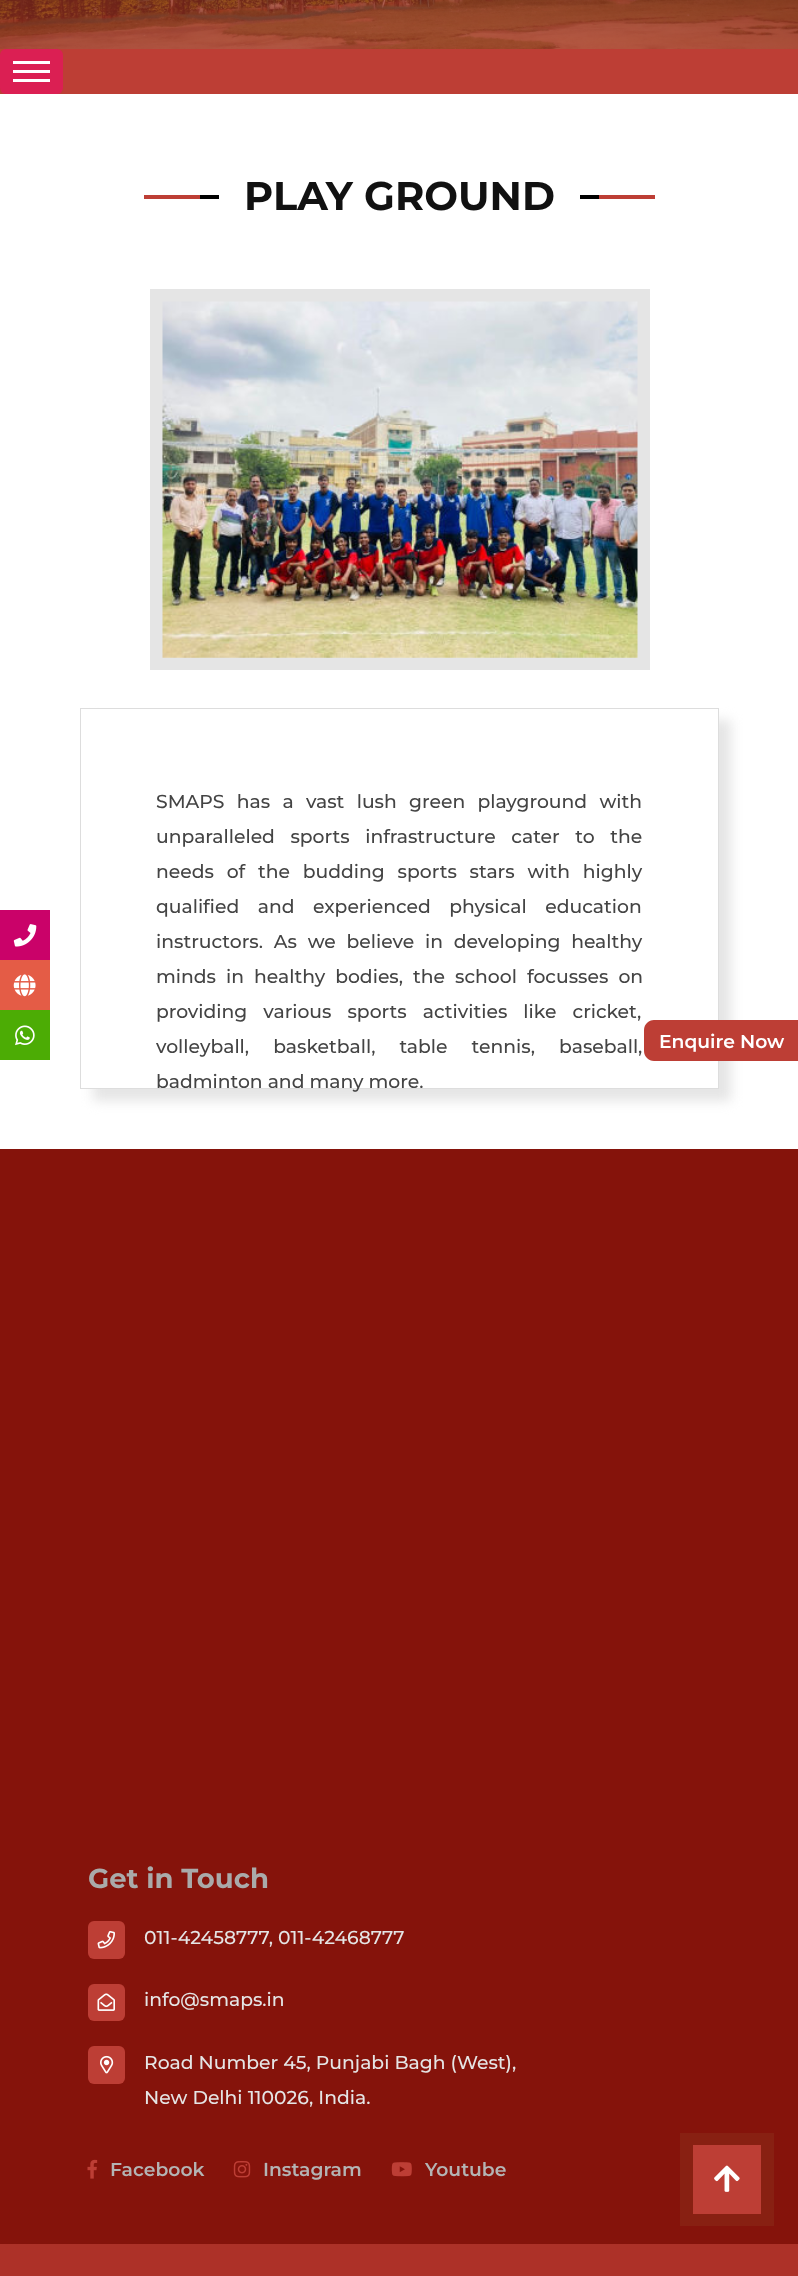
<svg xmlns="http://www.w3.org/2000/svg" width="798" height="2276">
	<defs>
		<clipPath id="clip1"><path d="M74 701H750V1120H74ZM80 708H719V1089H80Z" clip-rule="evenodd" /></clipPath>
	</defs>
	<rect width="100%" height="100%" fill="#FFFFFF" />
	<rect x="0" y="49" width="798" height="45" fill="#BD3E35" />
	<rect x="0" y="49" width="63" height="45" rx="6" fill="#DB1F53" />
	<rect x="13" y="61" width="37" height="3" fill="#FFFFFF" />
	<rect x="13" y="70" width="37" height="3" fill="#FFFFFF" />
	<rect x="13" y="79" width="37" height="3" fill="#FFFFFF" />
	<rect x="0" y="910" width="50" height="50" fill="#CA0269" />
	<image x="13" y="924" width="24" height="23" href="assets/img1.png" />
	<rect x="0" y="960" width="50" height="50" fill="#E45C46" />
	<image x="13" y="974" width="23" height="23" href="assets/img2.png" />
	<rect x="0" y="1010" width="50" height="50" fill="#4CAC05" />
	<image x="15" y="1025" width="20" height="21" href="assets/img3.png" />
	<image x="0" y="0" width="798" height="49" href="assets/img4.png" />
	<rect x="144" y="195" width="56" height="4" fill="#BD3E35" />
	<rect x="200" y="195" width="19" height="4" fill="#000000" />
	<text x="244" y="210" font-family="Montserrat" font-size="40" font-weight="700" fill="#111111">PLAY GROUND</text>
	<rect x="599" y="195" width="56" height="4" fill="#BD3E35" />
	<rect x="580" y="195" width="19" height="4" fill="#000000" />
	<rect x="156.5" y="295.5" width="487" height="368" fill="none" stroke="#E5E5E5" stroke-width="13" />
	<image x="162" y="301" width="476" height="357" href="assets/img5.png" />
	<g clip-path="url(#clip1)">
		<rect x="93" y="720" width="638" height="381" fill="#E5E5E5" filter="blur(6px)" />
	</g>
	<rect x="80.5" y="708.5" width="638" height="380" fill="none" stroke="#DDDDDD" />
	<g font-family="Montserrat" font-size="18.75" font-weight="500" fill="#444444">
		<text x="156" y="808" word-spacing="7.25">SMAPS has a vast lush green playground with</text>
		<text x="156" y="843" word-spacing="10.5">unparalleled sports infrastructure cater to the</text>
		<text x="156" y="878" word-spacing="7.75">needs of the budding sports stars with highly</text>
		<text x="156" y="913" word-spacing="13.5">qualified and experienced physical education</text>
		<text x="156" y="948" word-spacing="5.75">instructors. As we believe in developing healthy</text>
		<text x="156" y="983" word-spacing="5">minds in healthy bodies, the school focusses on</text>
		<text x="156" y="1018" word-spacing="11">providing various sports activities like cricket,</text>
		<text x="156" y="1053" word-spacing="19">volleyball, basketball, table tennis, baseball,</text>
		<text x="156" y="1088">badminton and many more.</text>
	</g>
	<path d="M654 1020H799V1061H654C648.5 1061 644 1056.5 644 1051V1030C644 1024.5 648.5 1020 654 1020Z" fill="#BD3E35" />
	<text x="659" y="1048" font-family="Montserrat" font-size="18.75" font-weight="600" fill="#FFFFFF">Enquire Now</text>
	<rect x="0" y="1149" width="798" height="1095" fill="#85130B" />
	<text x="88" y="1888" font-family="Montserrat" font-size="27.5" font-weight="700" fill="#AAAAAA">Get in Touch</text>
	<rect x="88" y="1921" width="37" height="38" rx="6" fill="#BD3E35" />
	<image x="97" y="1930" width="18" height="19" href="assets/img6.png" />
	<text x="144" y="1944" font-family="Montserrat" font-size="18.75" font-weight="500" fill="#E5E5E5">011-42458777, 011-42468777</text>
	<rect x="88" y="1984" width="37" height="37" rx="6" fill="#BD3E35" />
	<image x="97" y="1993" width="18" height="18" href="assets/img7.png" />
	<text x="144" y="2006" font-family="Montserrat" font-size="18.75" font-weight="500" fill="#E5E5E5">info@smaps.in</text>
	<rect x="88" y="2046" width="37" height="38" rx="6" fill="#BD3E35" />
	<image x="100" y="2055" width="14" height="19" href="assets/img8.png" />
	<g font-family="Montserrat" font-size="18.75" font-weight="500" fill="#E5E5E5">
		<text x="144" y="2069">Road Number 45, Punjabi Bagh (West),</text>
		<text x="144" y="2104">New Delhi 110026, India.</text>
	</g>
	<image x="87" y="2159" width="11" height="20" href="assets/img9.png" />
	<text x="110" y="2176" font-family="Montserrat" font-size="18.75" font-weight="600" fill="#B4B4B4">Facebook</text>
	<image x="233" y="2161" width="18" height="17" href="assets/img10.png" />
	<text x="263" y="2176" font-family="Montserrat" font-size="18.75" font-weight="600" fill="#B4B4B4">Instagram</text>
	<image x="391" y="2162" width="21" height="15" href="assets/img11.png" />
	<text x="425" y="2176" font-family="Montserrat" font-size="18.75" font-weight="600" fill="#B4B4B4">Youtube</text>
	<rect x="0" y="2244" width="798" height="32" fill="#AD3128" />
	<rect x="686.5" y="2139.5" width="81" height="80" fill="none" stroke="#882012" stroke-width="13" />
	<rect x="693" y="2145" width="68" height="69" fill="#BD3E35" />
	<image x="714" y="2165" width="26" height="27" href="assets/img12.png" />
</svg>
